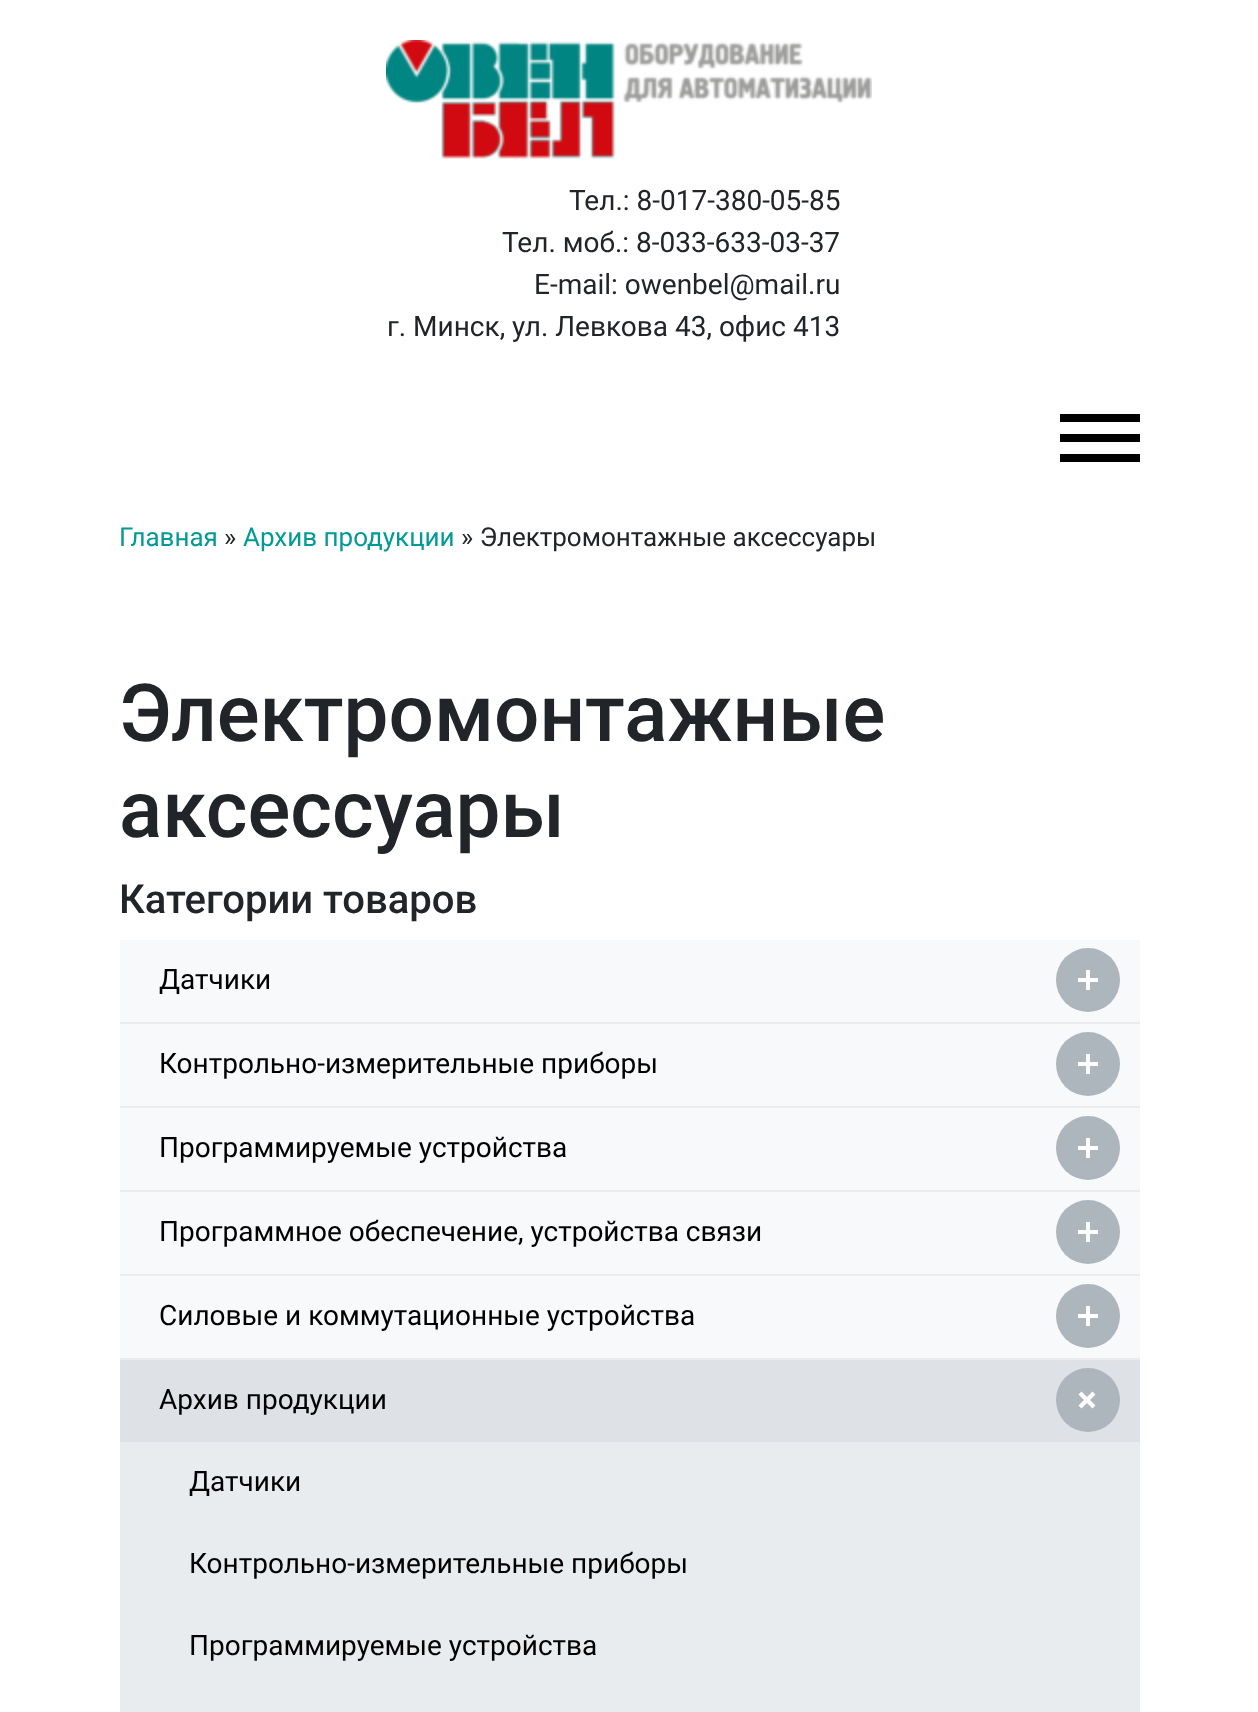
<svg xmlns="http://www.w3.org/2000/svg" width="1258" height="1712">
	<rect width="100%" height="100%" fill="#FFFFFF" />
	<image x="386" y="40" width="486" height="119" href="assets/img1.png" />
	<g font-family="Roboto" font-size="28" fill="#212529">
		<text x="569" y="210">Тел.: 8-017-380-05-85</text>
		<text x="502" y="252">Тел. моб.: 8-033-633-03-37</text>
		<text x="534" y="294">E-mail: owenbel@mail.ru</text>
		<text x="387" y="336">г. Минск, ул. Левкова 43, офис 413</text>
	</g>
	<rect x="1060" y="414" width="80" height="8" fill="#000000" />
	<rect x="1060" y="434" width="80" height="8" fill="#000000" />
	<rect x="1060" y="454" width="80" height="8" fill="#000000" />
	<text x="119" y="546" font-family="Roboto" font-size="26" fill="#019A97">Главная</text>
	<text x="224" y="546" font-family="Roboto" font-size="26" fill="#212529">»</text>
	<text x="243" y="546" font-family="Roboto" font-size="26" fill="#019A97">Архив продукции</text>
	<text x="461" y="546" font-family="Roboto" font-size="26" fill="#212529">» Электромонтажные аксессуары</text>
	<g font-family="Roboto" font-size="80" font-weight="500" fill="#212529">
		<text x="119" y="741">Электромонтажные</text>
		<text x="119" y="837">аксессуары</text>
	</g>
	<text x="119" y="913" font-family="Roboto" font-size="40" font-weight="500" fill="#212529">Категории товаров</text>
	<rect x="120" y="940" width="1020" height="418" fill="#F8F9FA" />
	<rect x="120" y="1022" width="1020" height="2" fill="#E9ECEF" />
	<text x="159" y="989" font-family="Roboto" font-size="28" fill="#000000">Датчики</text>
	<circle cx="1088" cy="980" r="32" fill="#ADB5BD" />
	<rect x="1078" y="978" width="20" height="4" fill="#FFFFFF" />
	<rect x="1086" y="970" width="4" height="20" fill="#FFFFFF" />
	<rect x="120" y="1106" width="1020" height="2" fill="#E9ECEF" />
	<text x="159" y="1073" font-family="Roboto" font-size="28" fill="#000000">Контрольно-измерительные приборы</text>
	<circle cx="1088" cy="1064" r="32" fill="#ADB5BD" />
	<rect x="1078" y="1062" width="20" height="4" fill="#FFFFFF" />
	<rect x="1086" y="1054" width="4" height="20" fill="#FFFFFF" />
	<rect x="120" y="1190" width="1020" height="2" fill="#E9ECEF" />
	<text x="159" y="1157" font-family="Roboto" font-size="28" fill="#000000">Программируемые устройства</text>
	<circle cx="1088" cy="1148" r="32" fill="#ADB5BD" />
	<rect x="1078" y="1146" width="20" height="4" fill="#FFFFFF" />
	<rect x="1086" y="1138" width="4" height="20" fill="#FFFFFF" />
	<rect x="120" y="1274" width="1020" height="2" fill="#E9ECEF" />
	<text x="159" y="1241" font-family="Roboto" font-size="28" fill="#000000">Программное обеспечение, устройства связи</text>
	<circle cx="1088" cy="1232" r="32" fill="#ADB5BD" />
	<rect x="1078" y="1230" width="20" height="4" fill="#FFFFFF" />
	<rect x="1086" y="1222" width="4" height="20" fill="#FFFFFF" />
	<rect x="120" y="1358" width="1020" height="2" fill="#E9ECEF" />
	<text x="159" y="1325" font-family="Roboto" font-size="28" fill="#000000">Силовые и коммутационные устройства</text>
	<circle cx="1088" cy="1316" r="32" fill="#ADB5BD" />
	<rect x="1078" y="1314" width="20" height="4" fill="#FFFFFF" />
	<rect x="1086" y="1306" width="4" height="20" fill="#FFFFFF" />
	<rect x="120" y="1360" width="1020" height="82" fill="#DEE2E6" />
	<text x="159" y="1409" font-family="Roboto" font-size="28" fill="#000000">Архив продукции</text>
	<circle cx="1088" cy="1400" r="32" fill="#ADB5BD" />
	<path d="M1081.5 1391.5L1095.5 1405.5L1092.5 1408.5L1078.5 1394.5Z" fill="#FFFFFF" />
	<path d="M1092.5 1391.5L1095.5 1394.5L1081.5 1408.5L1078.5 1405.5Z" fill="#FFFFFF" />
	<rect x="120" y="1442" width="1020" height="270" fill="#E9ECEF" />
	<g font-family="Roboto" font-size="28" fill="#000000">
		<text x="189" y="1491">Датчики</text>
		<text x="189" y="1573">Контрольно-измерительные приборы</text>
		<text x="189" y="1655">Программируемые устройства</text>
	</g>
</svg>
